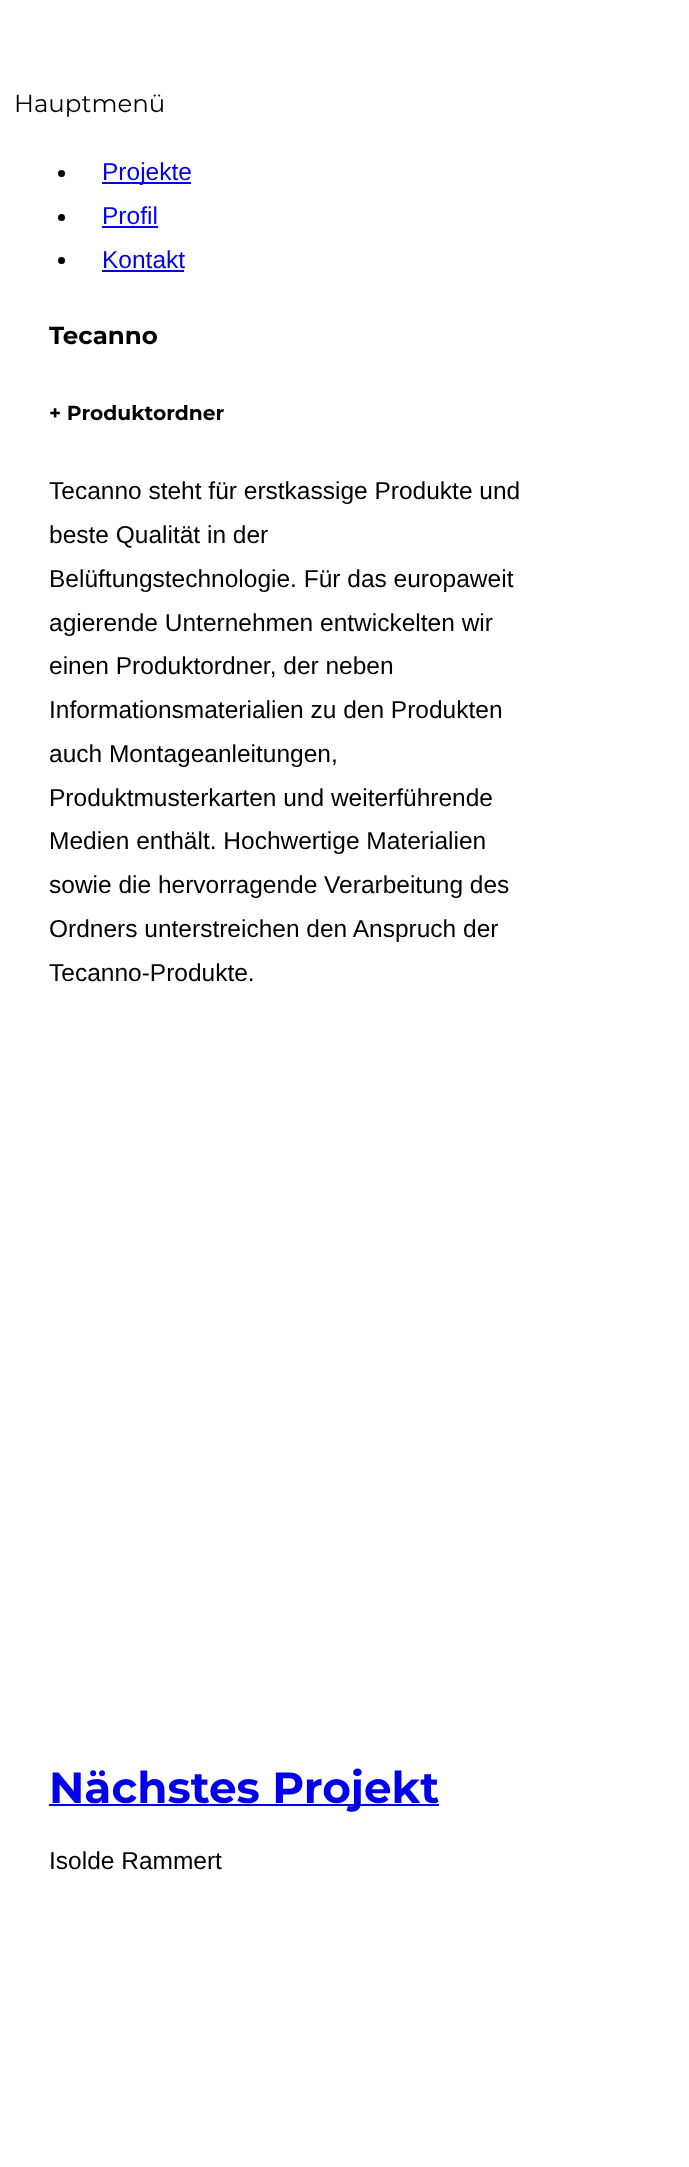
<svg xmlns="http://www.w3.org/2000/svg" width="689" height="2167">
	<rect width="100%" height="100%" fill="#FFFFFF" />
	<text x="14" y="112" font-family="Montserrat" font-size="24.5" fill="#000000">Hauptmenü</text>
	<circle cx="61.5" cy="173.5" r="3.5" fill="#000000" />
	<rect x="102" y="182" width="89" height="2" fill="#0000EE" />
	<text x="102" y="180" font-family="Liberation Sans" font-size="24.5" fill="#0000EE">Projekte</text>
	<circle cx="61.5" cy="217.5" r="3.5" fill="#000000" />
	<text x="102" y="224" font-family="Liberation Sans" font-size="24.5" fill="#0000EE">Profil</text>
	<rect x="102" y="226" width="56" height="2" fill="#0000EE" />
	<circle cx="61.5" cy="260.5" r="3.5" fill="#000000" />
	<text x="102" y="268" font-family="Liberation Sans" font-size="24.5" fill="#0000EE">Kontakt</text>
	<rect x="102" y="270" width="82" height="2" fill="#0000EE" />
	<text x="49" y="344" font-family="Montserrat" font-size="24.5" font-weight="700" fill="#000000">Tecanno</text>
	<text x="49" y="420" font-family="Montserrat" font-size="20.25" font-weight="700" fill="#000000">+ Produktordner</text>
	<g font-family="Liberation Sans" font-size="24.5" fill="#000000">
		<text x="49" y="499">Tecanno steht für erstkassige Produkte und</text>
		<text x="49" y="543">beste Qualität in der</text>
		<text x="49" y="587">Belüftungstechnologie. Für das europaweit</text>
		<text x="49" y="631">agierende Unternehmen entwickelten wir</text>
		<text x="49" y="674">einen Produktordner, der neben</text>
		<text x="49" y="718">Informationsmaterialien zu den Produkten</text>
		<text x="49" y="762">auch Montageanleitungen,</text>
		<text x="49" y="806">Produktmusterkarten und weiterführende</text>
		<text x="49" y="849">Medien enthält. Hochwertige Materialien</text>
		<text x="49" y="893">sowie die hervorragende Verarbeitung des</text>
		<text x="49" y="937">Ordners unterstreichen den Anspruch der</text>
		<text x="49" y="981">Tecanno-Produkte.</text>
	</g>
	<rect x="49" y="1804" width="390" height="2" fill="#0000EE" />
	<text x="49" y="1803" font-family="Montserrat" font-size="43.75" font-weight="700" fill="#0000EE">Nächstes Projekt</text>
	<text x="49" y="1869" font-family="Liberation Sans" font-size="24.5" fill="#000000">Isolde Rammert</text>
</svg>
